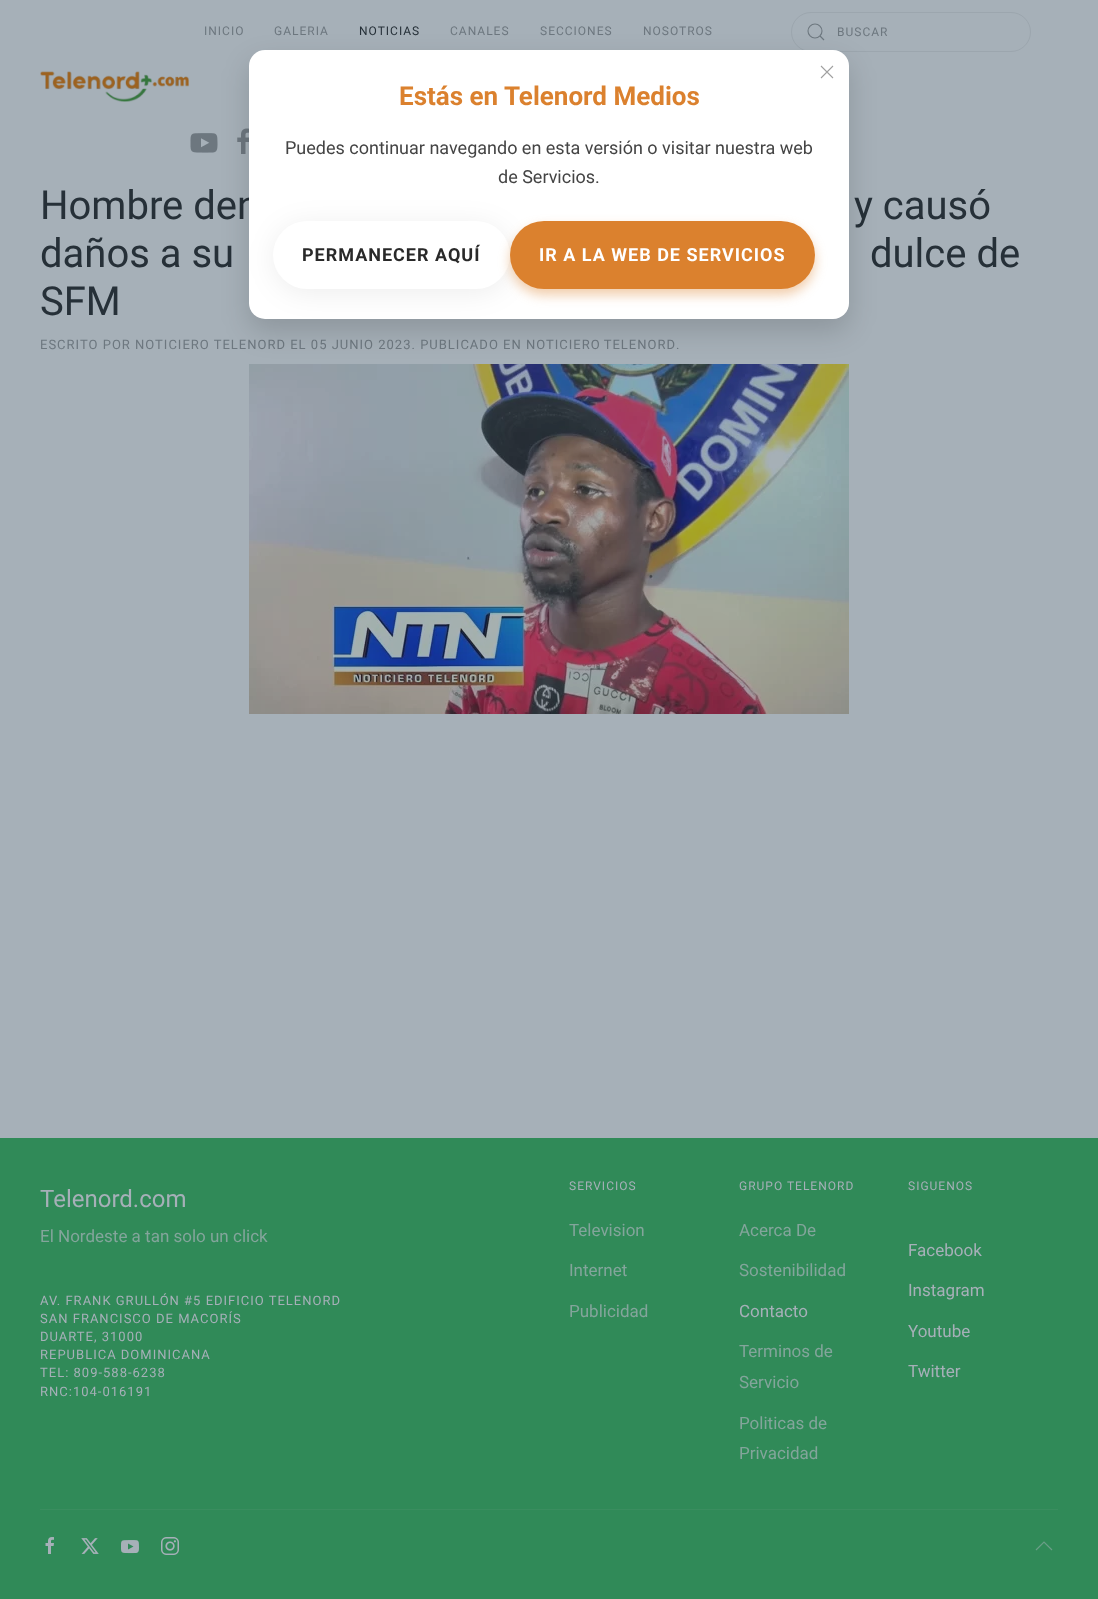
<svg xmlns="http://www.w3.org/2000/svg" width="1098" height="1599">
	<rect width="100%" height="100%" fill="#A6B0B8" />
	<g font-family="Roboto" font-size="12" letter-spacing="1" fill="#6D777F">
		<text x="204" y="35">INICIO</text>
		<text x="274" y="35">GALERIA</text>
	</g>
	<text x="359" y="35" font-family="Roboto" font-size="12" letter-spacing="1" fill="#263038">NOTICIAS</text>
	<g font-family="Roboto" font-size="12" letter-spacing="1" fill="#6D777F">
		<text x="450" y="35">CANALES</text>
		<text x="540" y="35">SECCIONES</text>
		<text x="643" y="35">NOSOTROS</text>
	</g>
	<rect x="791.5" y="12.5" width="239" height="39" rx="19.5" fill="none" stroke="#9CA6AE" />
	<circle cx="815" cy="31" r="7" fill="none" stroke="#6D777F" stroke-width="1.1" />
	<path d="M820 36L824 40Z" fill="none" stroke="#6D777F" stroke-width="1.1" />
	<text x="837" y="36" font-family="Roboto" font-size="12" letter-spacing="1" fill="#6D777F">BUSCAR</text>
	<image x="190" y="133" width="28" height="20" href="assets/img1.png" />
	<image x="237" y="128" width="12" height="26" href="assets/img2.png" />
	<image x="40" y="71" width="149" height="31" href="assets/img3.png" />
	<g font-family="Roboto" font-size="40" fill="#263038">
		<text x="40" y="219">Hombre den</text>
		<text x="854" y="219">y causó</text>
		<text x="40" y="267">daños a su</text>
		<text x="870" y="267">dulce de</text>
		<text x="40" y="315">SFM</text>
	</g>
	<g font-family="Roboto" font-size="13" letter-spacing="1" fill="#6D777F">
		<text x="40" y="349">ESCRITO POR NOTICIERO TELENORD EL 05 JUNIO 2023. PUBLICADO EN</text>
		<text x="526" y="349" word-spacing="-1">NOTICIERO TELENORD</text>
		<text x="676" y="349">.</text>
	</g>
	<image x="249" y="364" width="600" height="350" href="assets/img4.png" />
	<rect x="0" y="1138" width="1098" height="461" fill="#308A58" />
	<text x="40" y="1207" font-family="Roboto" font-size="24" fill="#A6B0B8">Telenord.com</text>
	<text x="40" y="1242" font-family="Roboto" font-size="17" fill="#83A59B">El Nordeste a tan solo un click</text>
	<g font-family="Roboto" font-size="13" letter-spacing="1" fill="#A6B0B8">
		<text x="40" y="1305">AV. FRANK GRULLÓN #5 EDIFICIO TELENORD</text>
		<text x="40" y="1323">SAN FRANCISCO DE MACORÍS</text>
		<text x="40" y="1341">DUARTE, 31000</text>
		<text x="40" y="1359">REPUBLICA DOMINICANA</text>
		<text x="40" y="1377">TEL: 809-588-6238</text>
		<text x="40" y="1396">RNC:104-016191</text>
	</g>
	<text x="569" y="1190" font-family="Roboto" font-size="12" letter-spacing="1" fill="#A6B0B8">SERVICIOS</text>
	<g font-family="Roboto" font-size="17" fill="#83A59B">
		<text x="569" y="1236">Television</text>
		<text x="569" y="1276">Internet</text>
		<text x="569" y="1317">Publicidad</text>
	</g>
	<text x="739" y="1190" font-family="Roboto" font-size="12" letter-spacing="1" fill="#A6B0B8">GRUPO TELENORD</text>
	<g font-family="Roboto" font-size="17" fill="#83A59B">
		<text x="739" y="1236">Acerca De</text>
		<text x="739" y="1276">Sostenibilidad</text>
	</g>
	<text x="739" y="1317" font-family="Roboto" font-size="17" fill="#A6B0B8">Contacto</text>
	<g font-family="Roboto" font-size="17" fill="#83A59B">
		<text x="739" y="1357">Terminos de</text>
		<text x="739" y="1388">Servicio</text>
		<text x="739" y="1429">Politicas de</text>
		<text x="739" y="1459">Privacidad</text>
	</g>
	<text x="908" y="1190" font-family="Roboto" font-size="12" letter-spacing="1" fill="#A6B0B8">SIGUENOS</text>
	<g font-family="Roboto" font-size="17" fill="#A6B0B8">
		<text x="908" y="1256">Facebook</text>
		<text x="908" y="1296">Instagram</text>
		<text x="908" y="1337">Youtube</text>
		<text x="908" y="1377">Twitter</text>
	</g>
	<rect x="40" y="1509" width="1018" height="1" fill="#3A8D5F" />
	<image x="45" y="1537" width="9" height="17" href="assets/img5.png" />
	<image x="81" y="1538" width="18" height="16" href="assets/img6.png" />
	<image x="121" y="1540" width="18" height="14" href="assets/img7.png" />
	<image x="161" y="1537" width="18" height="18" href="assets/img8.png" />
	<path d="M1036 1550L1044 1542L1052 1550" fill="none" stroke="#6B9E88" stroke-width="1.2" />
	<rect x="249" y="62" width="600" height="269" rx="16" fill="#000000" fill-opacity="0.15" filter="blur(14px)" />
	<rect x="249" y="50" width="600" height="269" rx="16" fill="#FFFFFF" />
	<path d="M821 66L833 78M833 66L821 78" fill="none" stroke="#A0A0A0" stroke-width="1.1" />
	<text x="399" y="105" font-family="Roboto" font-size="26" font-weight="700" fill="#DB812E">Estás en Telenord Medios</text>
	<g font-family="Roboto" font-size="18" fill="#444444">
		<text x="285" y="154">Puedes continuar navegando en esta versión o visitar nuestra web</text>
		<text x="498" y="183">de Servicios.</text>
	</g>
	<rect x="273" y="225" width="237" height="68" rx="34" fill="#000000" fill-opacity="0.07" filter="blur(14px)" />
	<rect x="273" y="221" width="237" height="68" rx="34" fill="#FFFFFF" />
	<text x="302" y="261" font-family="Roboto" font-size="18" font-weight="700" letter-spacing="1" fill="#292929">PERMANECER AQUÍ</text>
	<rect x="510" y="227" width="305" height="68" rx="34" fill="#DB812E" fill-opacity="0.4" filter="blur(6px)" />
	<rect x="510" y="221" width="305" height="68" rx="34" fill="#DB812E" />
	<text x="539" y="261" font-family="Roboto" font-size="18" font-weight="700" letter-spacing="1" fill="#FFFFFF">IR A LA WEB DE SERVICIOS</text>
</svg>
